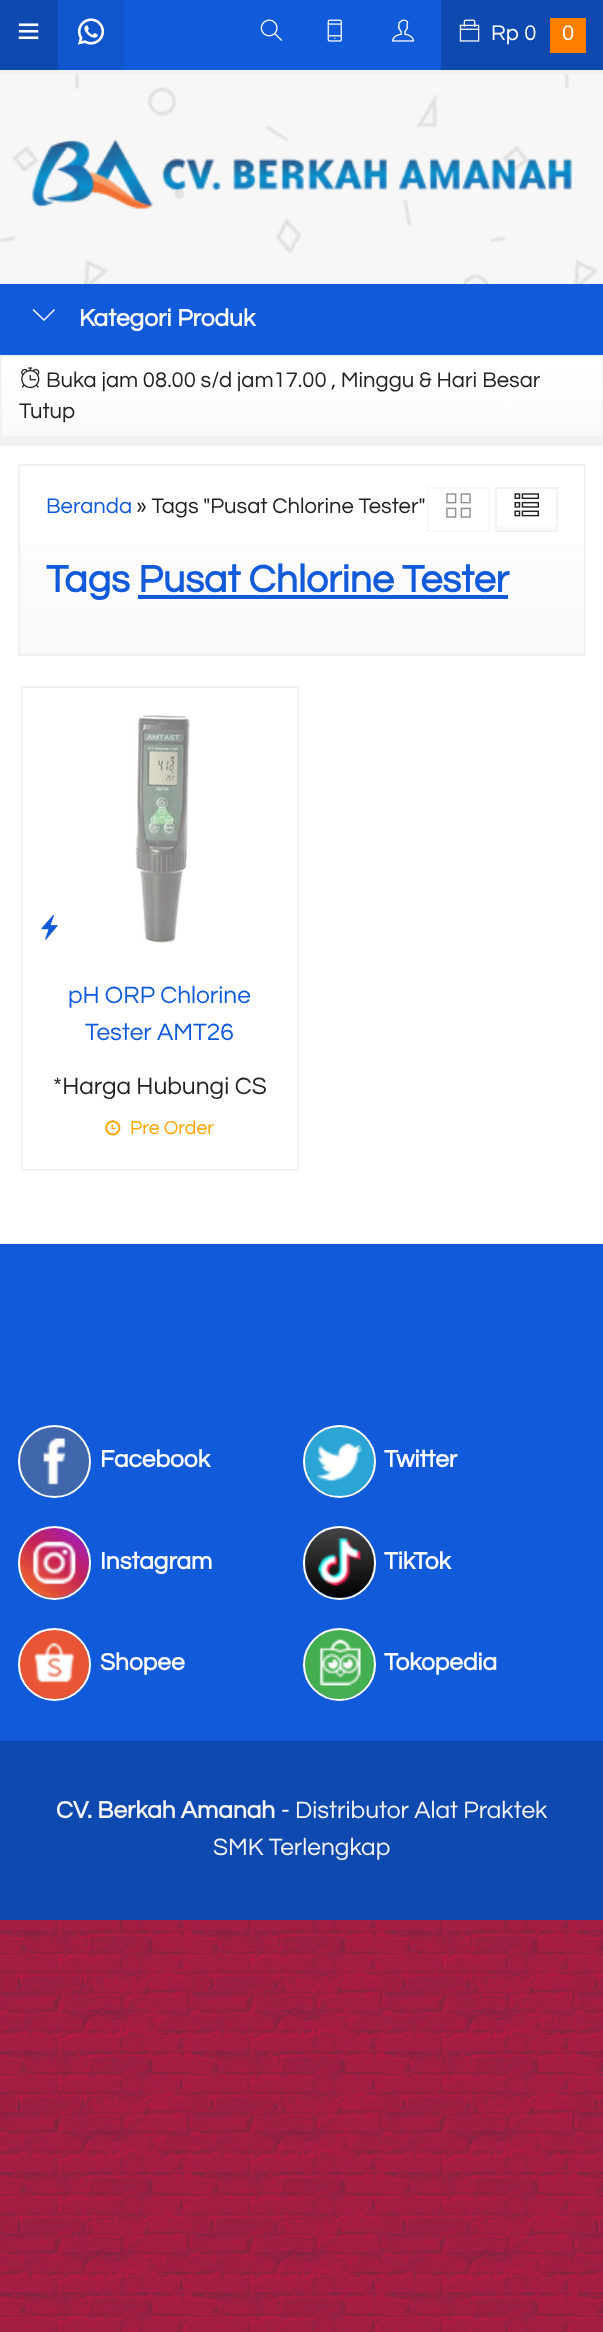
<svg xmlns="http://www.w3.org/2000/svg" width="603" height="2332">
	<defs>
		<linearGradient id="g1" gradientUnits="userSpaceOnUse" x1="302" y1="436" x2="302" y2="357"><stop offset="0" stop-color="#FAFAFA" /><stop offset="1" stop-color="#FFFFFF" /></linearGradient>
		<linearGradient id="g2" gradientUnits="userSpaceOnUse" x1="302" y1="466" x2="302" y2="655"><stop offset="0" stop-color="#FFFFFF" /><stop offset="1" stop-color="#F9F9F9" /></linearGradient>
		<linearGradient id="g3" gradientUnits="userSpaceOnUse" x1="527" y1="530" x2="527" y2="488"><stop offset="0" stop-color="#FAFAFA" /><stop offset="1" stop-color="#FFFFFF" /></linearGradient>
	</defs>
	<rect width="100%" height="100%" fill="#D71149" />
	<image x="0" y="1920" width="603" height="412" href="assets/img1.png" />
	<rect x="124" y="0" width="317" height="70" fill="#115BDB" />
	<rect x="0" y="0" width="58" height="70" fill="#0E49AF" />
	<image x="18" y="23" width="21" height="17" href="assets/img2.png" />
	<rect x="58" y="0" width="66" height="70" fill="#1055CC" />
	<image x="77" y="18" width="28" height="27" href="assets/img3.png" />
	<image x="260" y="19" width="23" height="22" href="assets/img4.png" />
	<image x="327" y="19" width="15" height="23" href="assets/img5.png" />
	<image x="392" y="19" width="23" height="23" href="assets/img6.png" />
	<rect x="441" y="0" width="162" height="70" fill="#0E49AF" />
	<image x="459" y="19" width="21" height="23" href="assets/img7.png" />
	<text x="491" y="40" font-family="Questrial" font-size="22.05" fill="#FFFFFF">Rp 0</text>
	<rect x="550" y="18" width="36" height="35" fill="#FF8000" />
	<text x="562" y="40" font-family="Questrial" font-size="22.05" fill="#FFFFFF">0</text>
	<rect x="0" y="70" width="603" height="4" fill="#F1F1F1" />
	<rect x="0" y="74" width="603" height="210" fill="#F7F7F7" />
	<image x="0" y="73" width="599" height="211" href="assets/img8.png" />
	<image x="31" y="139" width="541" height="70" href="assets/img9.png" />
	<rect x="0" y="284" width="603" height="71" fill="#115BDB" />
	<path d="M55 310L44 321L32.5 310L33.5 309L44 319L54 309Z" fill="#FFFFFF" />
	<text x="79" y="326" font-family="Questrial" font-size="24.5" font-weight="700" fill="#FFFFFF">Kategori Produk</text>
	<rect x="2" y="357" width="600" height="79" fill="url(#g1)" />
	<rect x="1" y="356" width="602" height="81" fill="none" stroke="#F2F2F2" stroke-width="2" />
	<image x="21" y="367" width="19" height="22" href="assets/img10.png" />
	<g font-family="Questrial" font-size="22.05" fill="#222222">
		<text x="46" y="387">Buka jam 08.00 s/d jam17.00 , Minggu &amp; Hari Besar</text>
		<text x="19" y="418">Tutup</text>
	</g>
	<rect x="0" y="446" width="603" height="798" fill="#FFFFFF" />
	<rect x="0" y="438" width="603" height="8" fill="#F1F1F1" />
	<rect x="20" y="545" width="564" height="109" fill="url(#g2)" />
	<rect x="19" y="465" width="566" height="190" fill="none" stroke="#F1F1F1" stroke-width="2" />
	<text x="46" y="513" font-family="Questrial" font-size="22.05" fill="#115BDB">Beranda</text>
	<text x="136" y="513" font-family="Questrial" font-size="22.05" fill="#222222">» Tags "Pusat Chlorine Tester"</text>
	<rect x="428" y="488" width="61" height="43" fill="none" stroke="#F8F8F8" stroke-width="2" />
	<rect x="497" y="526" width="59" height="4" fill="url(#g3)" />
	<rect x="496" y="488" width="61" height="43" fill="none" stroke="#F2F2F2" stroke-width="2" />
	<image x="446" y="493" width="25" height="25" href="assets/img11.png" />
	<image x="514" y="493" width="25" height="24" href="assets/img12.png" />
	<text x="46" y="592" font-family="Questrial" font-size="39.25" font-weight="700" fill="#115BDB">Tags Pusat Chlorine Tester</text>
	<rect x="138" y="595" width="370" height="4" fill="#115BDB" />
	<rect x="22" y="687" width="276" height="483" fill="none" stroke="#F1F1F1" stroke-width="2" />
	<image x="41" y="914" width="17" height="26" href="assets/img13.png" />
	<image x="133" y="713" width="58" height="230" href="assets/img14.png" />
	<g font-family="Questrial" font-size="24.5" fill="#115BDB">
		<text x="68" y="1003">pH ORP Chlorine</text>
		<text x="85" y="1040">Tester AMT26</text>
	</g>
	<text x="53" y="1094" font-family="Questrial" font-size="24.5" fill="#222222">*Harga Hubungi CS</text>
	<image x="105" y="1120" width="16" height="16" href="assets/img15.png" />
	<text x="130" y="1134" font-family="Questrial" font-size="19.5" fill="#FFA500">Pre Order</text>
	<rect x="0" y="1244" width="603" height="497" fill="#115BDB" />
	<image x="19" y="1426" width="71" height="71" href="assets/img16.png" />
	<circle cx="54.5" cy="1461.5" r="35.5" fill="none" stroke="#FFFFFF" stroke-width="2" />
	<text x="100" y="1467" font-family="Questrial" font-size="24.5" font-weight="700" fill="#FFFFFF">Facebook</text>
	<image x="304" y="1426" width="71" height="71" href="assets/img17.png" />
	<circle cx="339.5" cy="1461.5" r="35.5" fill="none" stroke="#FFFFFF" stroke-width="2" />
	<text x="384" y="1467" font-family="Questrial" font-size="24.5" font-weight="700" fill="#FFFFFF">Twitter</text>
	<image x="18" y="1527" width="72" height="71" href="assets/img18.png" />
	<rect x="19" y="1527" width="71" height="72" rx="35.5" fill="none" stroke="#FFFFFF" stroke-width="2" />
	<text x="100" y="1569" font-family="Questrial" font-size="24.5" font-weight="700" fill="#FFFFFF">Instagram</text>
	<image x="304" y="1527" width="71" height="71" href="assets/img19.png" />
	<rect x="304" y="1527" width="71" height="72" rx="35.5" fill="none" stroke="#FFFFFF" stroke-width="2" />
	<text x="384" y="1569" font-family="Questrial" font-size="24.5" font-weight="700" fill="#FFFFFF">TikTok</text>
	<image x="18" y="1629" width="72" height="71" href="assets/img20.png" />
	<circle cx="54.5" cy="1664.5" r="35.5" fill="none" stroke="#FFFFFF" stroke-width="2" />
	<text x="100" y="1670" font-family="Questrial" font-size="24.5" font-weight="700" fill="#FFFFFF">Shopee</text>
	<image x="304" y="1629" width="71" height="71" href="assets/img21.png" />
	<circle cx="339.5" cy="1664.5" r="35.5" fill="none" stroke="#FFFFFF" stroke-width="2" />
	<text x="384" y="1670" font-family="Questrial" font-size="24.5" font-weight="700" fill="#FFFFFF">Tokopedia</text>
	<rect x="0" y="1741" width="603" height="179" fill="#0E49AF" />
	<text x="56" y="1818" font-family="Questrial" font-size="24.5" font-weight="700" fill="#F5F5F5">CV. Berkah Amanah</text>
	<g font-family="Questrial" font-size="24.5" fill="#F5F5F5">
		<text x="281" y="1818">- Distributor Alat Praktek</text>
		<text x="213" y="1855">SMK Terlengkap</text>
	</g>
</svg>
